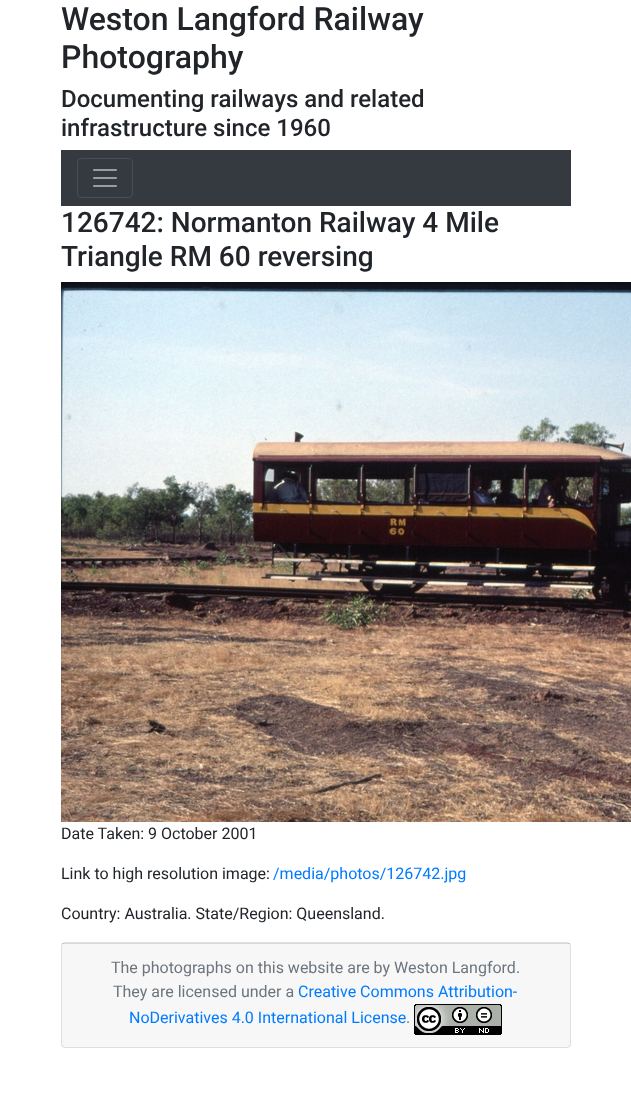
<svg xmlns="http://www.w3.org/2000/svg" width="631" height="1096">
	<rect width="100%" height="100%" fill="#FFFFFF" />
	<g font-family="Roboto" font-size="32" font-weight="500" fill="#212529">
		<text x="61" y="30">Weston Langford Railway</text>
		<text x="61" y="68">Photography</text>
	</g>
	<g font-family="Roboto" font-size="24" font-weight="500" fill="#212529">
		<text x="61" y="107">Documenting railways and related</text>
		<text x="61" y="136">infrastructure since 1960</text>
	</g>
	<rect x="61" y="150" width="510" height="56" fill="#343A40" />
	<rect x="77.5" y="158.5" width="55" height="39" rx="3.5" fill="none" stroke="#484E53" />
	<image x="93" y="169" width="24" height="18" href="assets/img1.png" />
	<g font-family="Roboto" font-size="28" font-weight="500" fill="#212529">
		<text x="61" y="232">126742: Normanton Railway 4 Mile</text>
		<text x="61" y="266">Triangle RM 60 reversing</text>
	</g>
	<image x="61" y="282" width="570" height="540" href="assets/img2.png" />
	<g font-family="Roboto" font-size="16" fill="#212529">
		<text x="61" y="839">Date Taken: 9 October 2001</text>
		<text x="61" y="879">Link to high resolution image:</text>
	</g>
	<text x="273" y="879" font-family="Roboto" font-size="16" fill="#007BFF">/media/photos/126742.jpg</text>
	<text x="61" y="919" font-family="Roboto" font-size="16" fill="#212529">Country: Australia. State/Region: Queensland.</text>
	<rect x="61.5" y="942.5" width="509" height="105" rx="3.5" fill="none" stroke="#DFDFDF" />
	<rect x="62" y="943" width="508" height="104" fill="#000000" fill-opacity="0.03" />
	<rect x="62" y="943" width="508" height="1" fill="#000000" fill-opacity="0.12" />
	<g font-family="Roboto" font-size="16" fill="#6C757D">
		<text x="111" y="973">The photographs on this website are by Weston Langford.</text>
		<text x="113" y="997">They are licensed under a</text>
	</g>
	<g font-family="Roboto" font-size="16" fill="#007BFF">
		<text x="298" y="997">Creative Commons Attribution-</text>
		<text x="129" y="1023">NoDerivatives 4.0 International License</text>
	</g>
	<text x="406" y="1023" font-family="Roboto" font-size="16" fill="#6C757D">.</text>
	<image x="414" y="1004" width="88" height="31" href="assets/img3.png" />
</svg>
